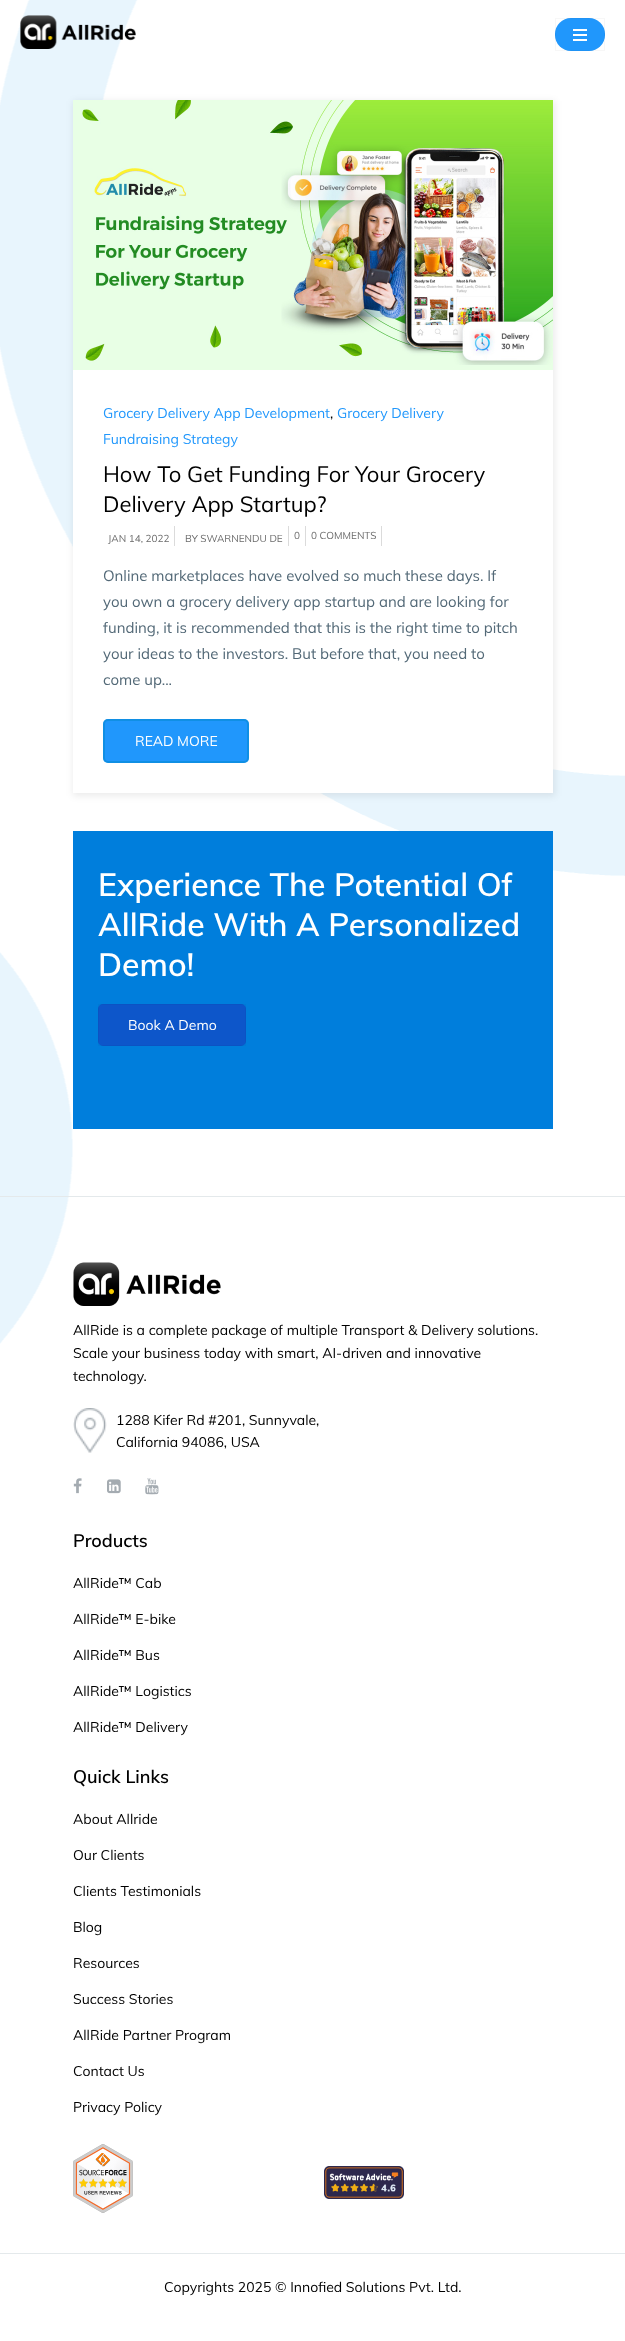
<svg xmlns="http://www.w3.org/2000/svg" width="625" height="2341">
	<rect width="100%" height="100%" fill="#FFFFFF" />
	<image x="0" y="0" width="625" height="1344" href="assets/img1.png" />
	<image x="20" y="15" width="116" height="34" href="assets/img2.png" />
	<rect x="555" y="18" width="50" height="33" rx="16" fill="#2097FC" />
	<rect x="555.5" y="18.5" width="49" height="32" fill="none" stroke="#000000" stroke-opacity="0.03" />
	<rect x="573" y="29" width="14" height="2" fill="#FFFFFF" />
	<rect x="573" y="34" width="14" height="2" fill="#FFFFFF" />
	<rect x="573" y="39" width="14" height="2" fill="#FFFFFF" />
	<rect x="73" y="101" width="482" height="695" fill="#000000" fill-opacity="0.08" filter="blur(3.5px)" />
	<rect x="73" y="370" width="480" height="423" fill="#FFFFFF" />
	<image x="73" y="100" width="480" height="270" href="assets/img3.png" />
	<text x="103" y="418" font-family="Muli" font-size="14" fill="#2097FC">Grocery Delivery App Development</text>
	<text x="330" y="418" font-family="Muli" font-size="14" fill="#000000">,</text>
	<g font-family="Muli" font-size="14" fill="#2097FC">
		<text x="337" y="418">Grocery Delivery</text>
		<text x="103" y="444">Fundraising Strategy</text>
	</g>
	<g font-family="Muli" font-size="22" fill="#000000">
		<text x="103" y="482">How To Get Funding For Your Grocery</text>
		<text x="103" y="512">Delivery App Startup?</text>
	</g>
	<rect x="174" y="526" width="1" height="20" fill="#DBDBDB" />
	<text x="108" y="542" font-family="Muli" font-size="10" fill="#6C6C6C">JAN 14, 2022</text>
	<rect x="288" y="526" width="1" height="20" fill="#DBDBDB" />
	<text x="185" y="542" font-family="Muli" font-size="10" fill="#6C6C6C">BY SWARNENDU DE</text>
	<rect x="305" y="526" width="1" height="20" fill="#DBDBDB" />
	<text x="294" y="539" font-family="Muli" font-size="10" fill="#6C6C6C">0</text>
	<rect x="381" y="526" width="1" height="20" fill="#DBDBDB" />
	<text x="311" y="539" font-family="Muli" font-size="10" fill="#6C6C6C">0 COMMENTS</text>
	<g font-family="Muli" font-size="15" fill="#536977">
		<text x="103" y="581">Online marketplaces have evolved so much these days. If</text>
		<text x="103" y="607">you own a grocery delivery app startup and are looking for</text>
		<text x="103" y="633">funding, it is recommended that this is the right time to pitch</text>
		<text x="103" y="659">your ideas to the investors. But before that, you need to</text>
		<text x="103" y="685">come up...</text>
	</g>
	<rect x="103" y="719" width="146" height="44" rx="5" fill="#2097FC" />
	<rect x="104" y="720" width="144" height="42" rx="4" fill="none" stroke="#0088CC" stroke-opacity="0.5" stroke-width="2" />
	<text x="135" y="746" font-family="Muli" font-size="14" fill="#FFFFFF">READ MORE</text>
	<rect x="73" y="831" width="480" height="298" fill="#007EDC" />
	<g font-family="Muli" font-size="32" font-weight="600" fill="#FFFFFF">
		<text x="98" y="896">Experience The Potential Of</text>
		<text x="98" y="936">AllRide With A Personalized</text>
		<text x="98" y="976">Demo!</text>
	</g>
	<rect x="98" y="1004" width="148" height="42" rx="5" fill="#0D56CA" />
	<rect x="98.5" y="1004.5" width="147" height="41" fill="none" stroke="#000000" stroke-opacity="0.03" />
	<text x="128" y="1030" font-family="Muli" font-size="14" fill="#FFFFFF">Book A Demo</text>
	<rect x="0" y="1196" width="625" height="1" fill="#E4E9EB" />
	<image x="73" y="1262" width="148" height="44" href="assets/img4.png" />
	<g font-family="Muli" font-size="14" fill="#000000">
		<text x="73" y="1335">AllRide is a complete package of multiple Transport &amp; Delivery solutions.</text>
		<text x="73" y="1358">Scale your business today with smart, AI-driven and innovative</text>
		<text x="73" y="1381">technology.</text>
	</g>
	<image x="73" y="1408" width="34" height="45" href="assets/img5.png" />
	<g font-family="Muli" font-size="14" fill="#000000">
		<text x="116" y="1425">1288 Kifer Rd #201, Sunnyvale,</text>
		<text x="116" y="1447">California 94086, USA</text>
	</g>
	<image x="73" y="1478" width="9" height="16" href="assets/img6.png" />
	<image x="107" y="1479" width="14" height="15" href="assets/img7.png" />
	<image x="145" y="1478" width="14" height="17" href="assets/img8.png" />
	<text x="73" y="1547" font-family="Muli" font-size="18" font-weight="600" fill="#000000">Products</text>
	<g font-family="Muli" font-size="14" fill="#000000">
		<text x="73" y="1588">AllRide™ Cab</text>
		<text x="73" y="1624">AllRide™ E-bike</text>
		<text x="73" y="1660">AllRide™ Bus</text>
		<text x="73" y="1696">AllRide™ Logistics</text>
		<text x="73" y="1732">AllRide™ Delivery</text>
	</g>
	<text x="73" y="1783" font-family="Muli" font-size="18" font-weight="600" fill="#000000">Quick Links</text>
	<g font-family="Muli" font-size="14" fill="#000000">
		<text x="73" y="1824">About Allride</text>
		<text x="73" y="1860">Our Clients</text>
		<text x="73" y="1896">Clients Testimonials</text>
		<text x="73" y="1932">Blog</text>
		<text x="73" y="1968">Resources</text>
		<text x="73" y="2004">Success Stories</text>
		<text x="73" y="2040">AllRide Partner Program</text>
		<text x="73" y="2076">Contact Us</text>
		<text x="73" y="2112">Privacy Policy</text>
	</g>
	<image x="73" y="2144" width="60" height="69" href="assets/img9.png" />
	<image x="324" y="2166" width="80" height="33" href="assets/img10.png" />
	<rect x="0" y="2253" width="625" height="1" fill="#E4E9EB" />
	<text x="164" y="2292" font-family="Muli" font-size="14" fill="#000000">Copyrights 2025 © Innofied Solutions Pvt. Ltd.</text>
</svg>
